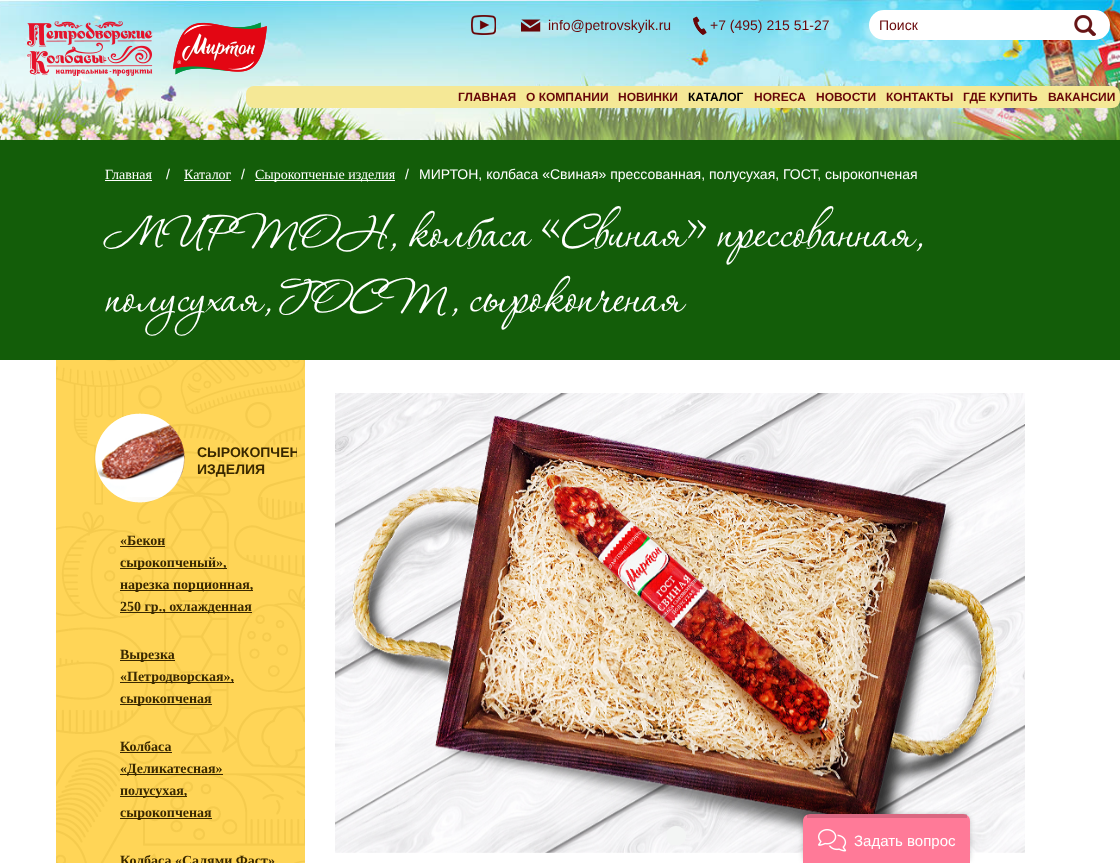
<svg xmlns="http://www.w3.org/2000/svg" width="1120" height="863">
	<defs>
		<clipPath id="clip1"><rect x="197" y="444" width="100" height="34" /></clipPath>
	</defs>
	<rect width="100%" height="100%" fill="#FFFFFF" />
	<image x="0" y="0" width="1120" height="140" href="assets/img1.png" />
	<image x="471" y="15" width="25" height="20" href="assets/img2.png" />
	<image x="521" y="19" width="20" height="13" href="assets/img3.png" />
	<text x="548" y="30" font-family="Liberation Sans" font-size="14" fill="#670608">info@petrovskyik.ru</text>
	<image x="693" y="16" width="14" height="19" href="assets/img4.png" />
	<text x="710" y="30" font-family="Liberation Sans" font-size="14" fill="#670608">+7 (495) 215 51-27</text>
	<rect x="869" y="10" width="241" height="30" rx="15" fill="#FFFFFF" />
	<text x="879" y="30" font-family="Liberation Sans" font-size="14" fill="#670608">Поиск</text>
	<image x="1074" y="15" width="22" height="21" href="assets/img5.png" />
	<image x="27" y="21" width="240" height="55" href="assets/img6.png" />
	<rect x="246" y="86" width="874" height="22" rx="8" fill="#F5E896" />
	<g font-family="Liberation Sans" font-size="12" font-weight="700" fill="#670608">
		<text x="458" y="101">ГЛАВНАЯ</text>
		<text x="526" y="101">О КОМПАНИИ</text>
		<text x="618" y="101">НОВИНКИ</text>
	</g>
	<text x="688" y="101" font-family="Liberation Sans" font-size="12" font-weight="700" fill="#000000">КАТАЛОГ</text>
	<g font-family="Liberation Sans" font-size="12" font-weight="700" fill="#670608">
		<text x="754" y="101">HORECA</text>
		<text x="816" y="101">НОВОСТИ</text>
		<text x="886" y="101">КОНТАКТЫ</text>
		<text x="963" y="101">ГДЕ КУПИТЬ</text>
		<text x="1048" y="101">ВАКАНСИИ</text>
	</g>
	<rect x="0" y="140" width="1120" height="220" fill="#135D09" />
	<text x="105" y="179" font-family="Liberation Serif" font-size="14" fill="#FFFFFF">Главная</text>
	<rect x="105" y="180" width="47" height="1" fill="#FFFFFF" />
	<text x="166" y="179" font-family="Liberation Sans" font-size="14" fill="#FFFFFF">/</text>
	<text x="184" y="179" font-family="Liberation Serif" font-size="14" fill="#FFFFFF">Каталог</text>
	<rect x="184" y="180" width="47" height="1" fill="#FFFFFF" />
	<text x="241" y="179" font-family="Liberation Sans" font-size="14" fill="#FFFFFF">/</text>
	<rect x="255" y="180" width="140" height="1" fill="#FFFFFF" />
	<text x="255" y="179" font-family="Liberation Serif" font-size="14" fill="#FFFFFF">Сырокопченые изделия</text>
	<g font-family="Liberation Sans" font-size="14" fill="#FFFFFF">
		<text x="405" y="179">/</text>
		<text x="419" y="179">МИРТОН, колбаса «Свиная» прессованная, полусухая, ГОСТ, сырокопченая</text>
	</g>
	<g font-family="Corinthia" font-size="60" fill="#FFFFFF">
		<text x="105" y="246">МИРТОН, колбаса «Свиная» прессованная,</text>
		<text x="105" y="311">полусухая, ГОСТ, сырокопченая</text>
	</g>
	<image x="56" y="360" width="249" height="503" href="assets/img7.png" />
	<image x="95" y="413" width="90" height="90" href="assets/img8.png" />
	<g clip-path="url(#clip1)">
		<text x="197" y="457" font-family="Liberation Sans" font-size="14" font-weight="700" fill="#392800">СЫРОКОПЧЕН</text>
	</g>
	<text x="197" y="474" font-family="Liberation Sans" font-size="14" font-weight="700" fill="#392800">ИЗДЕЛИЯ</text>
	<text x="120" y="545" font-family="Liberation Serif" font-size="14" font-weight="700" fill="#392800">«Бекон</text>
	<rect x="120" y="546" width="45" height="1" fill="#392800" />
	<rect x="120" y="568" width="107" height="1" fill="#392800" />
	<text x="120" y="567" font-family="Liberation Serif" font-size="14" font-weight="700" fill="#392800">сырокопченый»,</text>
	<rect x="120" y="590" width="133" height="1" fill="#392800" />
	<text x="120" y="589" font-family="Liberation Serif" font-size="14" font-weight="700" fill="#392800">нарезка порционная,</text>
	<rect x="120" y="612" width="132" height="1" fill="#392800" />
	<text x="120" y="611" font-family="Liberation Serif" font-size="14" font-weight="700" fill="#392800">250 гр., охлажденная</text>
	<rect x="120" y="660" width="55" height="1" fill="#392800" />
	<text x="120" y="659" font-family="Liberation Serif" font-size="14" font-weight="700" fill="#392800">Вырезка</text>
	<rect x="120" y="682" width="114" height="1" fill="#392800" />
	<text x="120" y="681" font-family="Liberation Serif" font-size="14" font-weight="700" fill="#392800">«Петродворская»,</text>
	<rect x="120" y="704" width="92" height="1" fill="#392800" />
	<g font-family="Liberation Serif" font-size="14" font-weight="700" fill="#392800">
		<text x="120" y="703">сырокопченая</text>
		<text x="120" y="751">Колбаса</text>
	</g>
	<rect x="120" y="752" width="52" height="1" fill="#392800" />
	<rect x="120" y="774" width="103" height="1" fill="#392800" />
	<text x="120" y="773" font-family="Liberation Serif" font-size="14" font-weight="700" fill="#392800">«Деликатесная»</text>
	<rect x="120" y="796" width="67" height="1" fill="#392800" />
	<text x="120" y="795" font-family="Liberation Serif" font-size="14" font-weight="700" fill="#392800">полусухая,</text>
	<rect x="120" y="818" width="92" height="1" fill="#392800" />
	<g font-family="Liberation Serif" font-size="14" font-weight="700" fill="#392800">
		<text x="120" y="817">сырокопченая</text>
		<text x="120" y="865">Колбаса «Салями Фаст»</text>
	</g>
	<image x="335" y="393" width="690" height="460" href="assets/img9.png" />
	<image x="667" y="826" width="19" height="19" href="assets/img10.png" />
	<rect x="803" y="814" width="167" height="49" rx="7" fill="#000000" fill-opacity="0.2" filter="blur(2.5px)" />
	<path d="M810 814H963C967 814 970 817 970 821V863H803V821C803 817 806 814 810 814Z" fill="#FF7A98" />
	<rect x="807" y="814" width="160" height="4" fill="#000000" fill-opacity="0.15" />
	<image x="818" y="829" width="29" height="23" href="assets/img11.png" />
	<text x="854" y="846" font-family="Liberation Sans" font-size="15" fill="#FFFFFF">Задать вопрос</text>
</svg>
